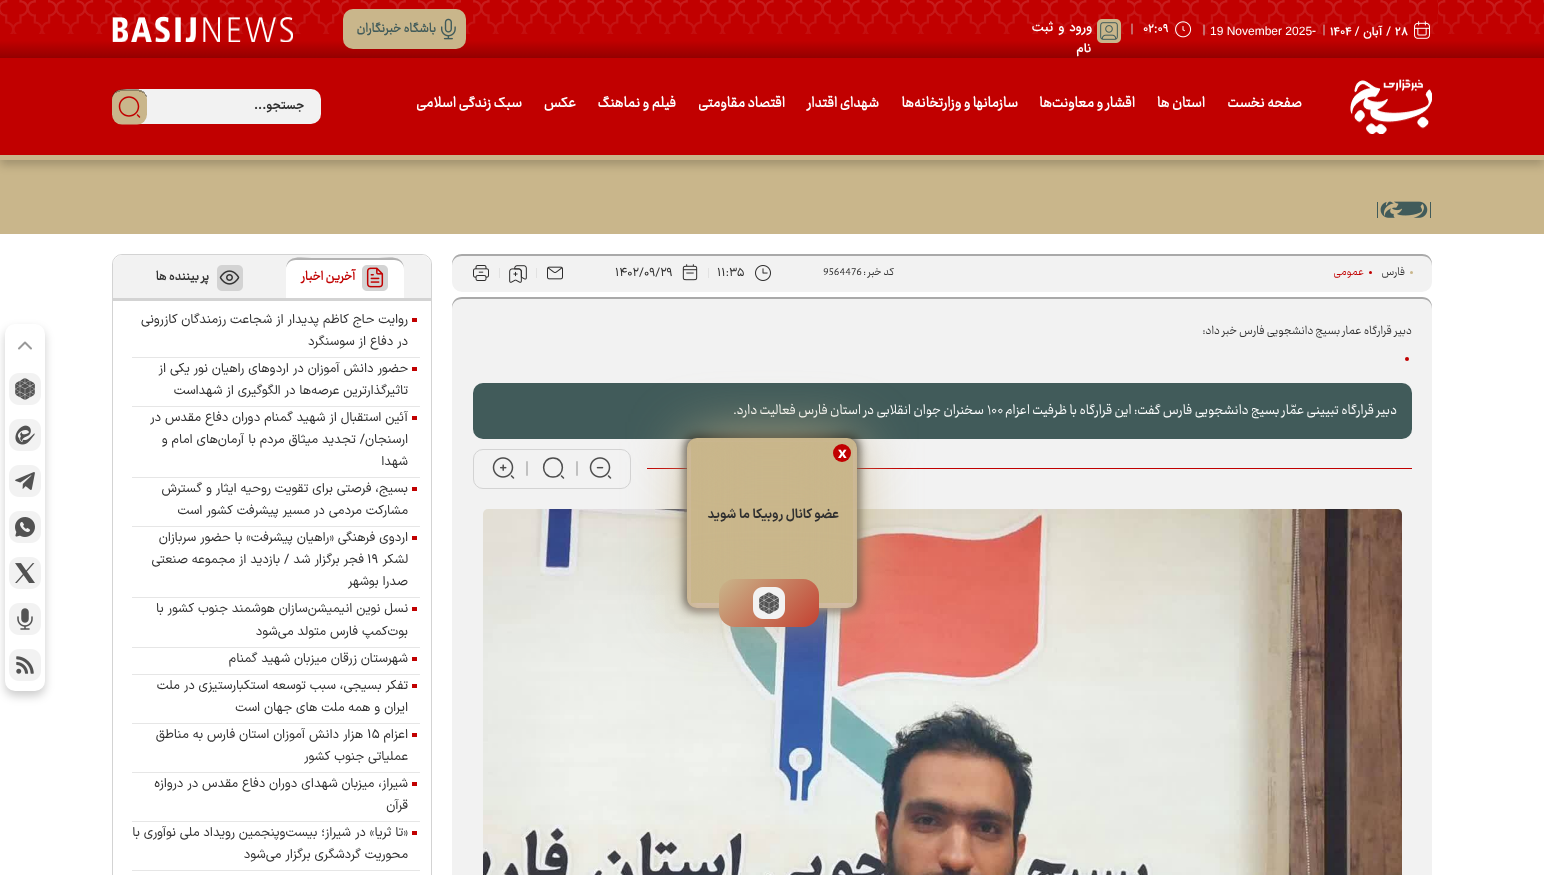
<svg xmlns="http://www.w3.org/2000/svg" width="1544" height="875">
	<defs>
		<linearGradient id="g1" gradientUnits="userSpaceOnUse" x1="772" y1="0" x2="772" y2="58"><stop offset="0" stop-color="#C10000" /><stop offset="0.7" stop-color="#C10000" /><stop offset="1" stop-color="#940000" /></linearGradient>
		<clipPath id="clip1"><path d="M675 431H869V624H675ZM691 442H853V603H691Z" clip-rule="evenodd" /></clipPath>
		<linearGradient id="g2" gradientUnits="userSpaceOnUse" x1="732" y1="566" x2="806" y2="640"><stop offset="0" stop-color="#C9B68B" /><stop offset="1" stop-color="#C44131" /></linearGradient>
	</defs>
	<rect width="100%" height="100%" fill="#FFFFFF" />
	<rect x="0" y="160" width="1544" height="74" fill="#C9B68B" />
	<rect x="0" y="63" width="1544" height="102" fill="#000000" fill-opacity="0.2" filter="blur(5px)" />
	<rect x="0" y="0" width="1544" height="58" fill="url(#g1)" />
	<image x="1414" y="21" width="16" height="18" href="assets/img2.png" />
	<text x="1395" y="35" font-family="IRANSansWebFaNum" font-size="12" font-weight="500" fill="#FFFFFF">۲۸</text>
	<text x="1391" y="35" font-family="IRANSansWebFaNum" font-size="12" font-weight="500" direction="rtl" fill="#FFFFFF">/ آبان /</text>
	<text x="1330" y="35" font-family="IRANSansWebFaNum" font-size="12" font-weight="500" fill="#FFFFFF">۱۴۰۴</text>
	<path d="M1324 25V35" fill="none" stroke="#CCCCCC" stroke-linecap="round" />
	<text x="1312" y="35" font-family="IRANSansWebFaNum" font-size="12" font-weight="500" fill="#FFFFFF">-</text>
	<text x="1210" y="35" font-family="Liberation Sans" font-size="12" fill="#FFFFFF">19 November 2025</text>
	<path d="M1204 25V35" fill="none" stroke="#CCCCCC" stroke-linecap="round" />
	<image x="1175" y="21" width="17" height="17" href="assets/img3.png" />
	<text x="1143" y="32" font-family="IRANSansWebFaNum" font-size="12" font-weight="500" fill="#FFFFFF">02:09</text>
	<path d="M1132 24V34" fill="none" stroke="#CCCCCC" stroke-linecap="round" />
	<image x="112" y="16" width="181" height="26" href="assets/img6.png" />
	<image x="0" y="0" width="1544" height="34" href="assets/img1.png" />
	<image x="1097" y="19" width="24" height="24" href="assets/img4.png" />
	<g font-family="IRANSansWebFaNum" font-size="13" font-weight="500" letter-spacing="-0.25" direction="rtl" fill="#FFFFFF">
		<text x="1092" y="31" word-spacing="1">ورود و ثبت</text>
		<text x="1091" y="52">نام</text>
	</g>
	<rect x="343" y="9" width="123" height="40" rx="10" fill="#C9B68B" />
	<image x="441" y="18" width="15" height="22" href="assets/img5.png" />
	<text x="436" y="32" font-family="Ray" font-size="14" font-weight="700" direction="rtl" fill="#415B5A">باشگاه خبرنگاران</text>
	<rect x="0" y="58" width="1544" height="97" fill="#C10000" />
	<rect x="0" y="155" width="1544" height="5" fill="#C9B68B" />
	<image x="1350" y="79" width="82" height="55" href="assets/img7.png" />
	<g font-family="Ray" font-size="16" font-weight="700" direction="rtl" fill="#FFFFFF">
		<text x="1302" y="107">صفحه نخست</text>
		<text x="1205" y="107">استان ها</text>
		<text x="1135" y="107">اقشار و معاونت‌ها</text>
		<text x="1018" y="107">سازمانها و وزارتخانه‌ها</text>
		<text x="879" y="107">شهدای اقتدار</text>
		<text x="785" y="107">اقتصاد مقاومتی</text>
		<text x="676" y="107">فیلم و نماهنگ</text>
		<text x="576" y="107">عکس</text>
		<text x="522" y="107">سبک زندگی اسلامی</text>
	</g>
	<rect x="117" y="89" width="204" height="35" rx="10" fill="#F2F2F2" />
	<text x="304" y="109" font-family="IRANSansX" font-size="12" font-weight="700" direction="rtl" fill="#303030">جستجو...</text>
	<image x="112" y="89" width="35" height="36" href="assets/img8.png" />
	<image x="1377" y="201" width="54" height="17" href="assets/img9.png" />
	<rect x="452" y="254" width="980" height="38" rx="10" fill="#F2F2F2" />
	<path d="M462 256H1422C1428 256 1432 260 1432 266V264C1432 258 1428 254 1422 254H462C456 254 452 258 452 264V266C452 260 456 256 462 256Z" fill="#000000" fill-opacity="0.3" />
	<circle cx="1411.5" cy="272.5" r="1.5" fill="#C9B68B" />
	<text x="1405" y="275" font-family="Ray" font-size="12" direction="rtl" fill="#303030">فارس</text>
	<circle cx="1370.5" cy="272.5" r="1.5" fill="#C10000" />
	<text x="1364" y="275" font-family="Ray" font-size="12" direction="rtl" fill="#C10000">عمومی</text>
	<text x="894" y="275" font-family="Ray" font-size="12" direction="rtl" fill="#303030">کد خبر :</text>
	<text x="823" y="275" font-family="Ray" font-size="12" fill="#303030">9564476</text>
	<image x="755" y="265" width="16" height="16" href="assets/img10.png" />
	<text x="717" y="276" font-family="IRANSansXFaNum" font-size="12" fill="#303030">۱۱:۳۵</text>
	<rect x="708" y="268" width="1" height="10" fill="#E2E2E2" />
	<image x="682" y="264" width="16" height="17" href="assets/img11.png" />
	<text x="615" y="276" font-family="IRANSansXFaNum" font-size="12" fill="#303030">۱۴۰۲/۰۹/۲۹</text>
	<image x="547" y="266" width="16" height="14" href="assets/img12.png" />
	<rect x="536" y="268" width="1" height="10" fill="#E2E2E2" />
	<image x="509" y="265" width="18" height="18" href="assets/img13.png" />
	<rect x="499" y="268" width="1" height="10" fill="#E2E2E2" />
	<image x="473" y="265" width="16" height="16" href="assets/img14.png" />
	<rect x="452" y="297" width="980" height="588" rx="10" fill="#F2F2F2" />
	<path d="M462 299H1422C1428 299 1432 303 1432 309V307C1432 301 1428 297 1422 297H462C456 297 452 301 452 307V309C452 303 456 299 462 299Z" fill="#000000" fill-opacity="0.3" />
	<text x="1412" y="334" font-family="Ray" font-size="13" direction="rtl" fill="#303030">دبیر قرارگاه عمار بسیج دانشجویی فارس خبر داد:</text>
	<circle cx="1407" cy="359" r="2" fill="#C10000" />
	<rect x="473" y="383" width="939" height="56" rx="10" fill="#415B5A" />
	<text x="1397" y="414" font-family="Ray" font-size="15" font-weight="500" direction="rtl" fill="#FFFFFF">دبیر قرارگاه تبیینی عمّار بسیج دانشجویی فارس گفت: این قرارگاه با ظرفیت اعزام</text>
	<text x="987" y="414" font-family="Ray" font-size="15" font-weight="500" fill="#FFFFFF">۱۰۰</text>
	<text x="984" y="414" font-family="Ray" font-size="15" font-weight="500" direction="rtl" fill="#FFFFFF">سخنران جوان انقلابی در استان فارس فعالیت دارد.</text>
	<rect x="647" y="468" width="765" height="1" fill="#C10000" />
	<rect x="473.5" y="449.5" width="157" height="39" rx="9.5" fill="none" stroke="#D3D3D3" />
	<image x="589" y="457" width="23" height="22" href="assets/img15.png" />
	<rect x="576" y="461" width="2" height="15" rx="1" fill="#C1C1C1" />
	<path d="M553 477C565.5 477 565.5 458 553 458C540.5 458 540.5 477 553 477ZM563.5 478L561.5 476" fill="none" stroke="#4D4D4D" stroke-width="1.5" stroke-linecap="round" stroke-linejoin="round" />
	<rect x="526" y="461" width="2" height="15" rx="1" fill="#C1C1C1" />
	<image x="492" y="457" width="23" height="22" href="assets/img16.png" />
	<image x="483" y="509" width="919" height="366" href="assets/img17.png" />
	<rect x="112.5" y="254.5" width="319" height="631" rx="9.5" fill="none" stroke="#D3D3D3" />
	<path d="M123 255H421C426.5 255 431 259.5 431 265V301H113V265C113 259.5 117.5 255 123 255Z" fill="#F2F2F2" />
	<rect x="113" y="298" width="318" height="3" fill="#D3D3D3" />
	<path d="M296 258H394C399.5 258 404 262.5 404 268V298H286V268C286 262.5 290.5 258 296 258Z" fill="#FFFFFF" />
	<path d="M296 260H394C400 260 404 264 404 270C404 254 389 258 378 258H312C301 258 286 254 286 270C286 264 290 260 296 260Z" fill="#000000" fill-opacity="0.3" />
	<image x="362" y="265" width="26" height="26" href="assets/img18.png" />
	<text x="355" y="280" font-family="Ray" font-size="14" font-weight="700" direction="rtl" fill="#C10000">آخرین اخبار</text>
	<image x="217" y="265" width="26" height="26" href="assets/img19.png" />
	<text x="209" y="280" font-family="Ray" font-size="14" font-weight="700" direction="rtl" fill="#303030">پر بیننده ها</text>
	<rect x="132" y="357" width="288" height="1" fill="#E6E6E6" />
	<rect x="412" y="318" width="5" height="4" fill="#C10000" />
	<g font-family="IRANSansXFaNum" font-size="13" direction="rtl" fill="#303030">
		<text x="408" y="323">روایت حاج کاظم پدیدار از شجاعت رزمندگان کازرونی</text>
		<text x="408" y="345">در دفاع از سوسنگرد</text>
	</g>
	<rect x="132" y="406" width="288" height="1" fill="#E6E6E6" />
	<rect x="412" y="367" width="5" height="4" fill="#C10000" />
	<g font-family="IRANSansXFaNum" font-size="13" direction="rtl" fill="#303030">
		<text x="408" y="372">حضور دانش آموزان در اردوهای راهیان نور یکی از</text>
		<text x="408" y="394">تاثیرگذارترین عرصه‌ها در الگوگیری از شهداست</text>
	</g>
	<rect x="132" y="477" width="288" height="1" fill="#E6E6E6" />
	<rect x="412" y="416" width="5" height="4" fill="#C10000" />
	<g font-family="IRANSansXFaNum" font-size="13" direction="rtl" fill="#303030">
		<text x="408" y="421">آئین استقبال از شهید گمنام دوران دفاع مقدس در</text>
		<text x="408" y="443">ارسنجان/ تجدید میثاق مردم با آرمان‌های امام و</text>
		<text x="408" y="465">شهدا</text>
	</g>
	<rect x="132" y="526" width="288" height="1" fill="#E6E6E6" />
	<rect x="412" y="487" width="5" height="4" fill="#C10000" />
	<g font-family="IRANSansXFaNum" font-size="13" direction="rtl" fill="#303030">
		<text x="408" y="492">بسیج، فرصتی برای تقویت روحیه ایثار و گسترش</text>
		<text x="408" y="514">مشارکت مردمی در مسیر پیشرفت کشور است</text>
	</g>
	<rect x="132" y="597" width="288" height="1" fill="#E6E6E6" />
	<rect x="412" y="536" width="5" height="4" fill="#C10000" />
	<g font-family="IRANSansXFaNum" font-size="13" direction="rtl" fill="#303030">
		<text x="408" y="541">اردوی فرهنگی «راهیان پیشرفت» با حضور سربازان</text>
		<text x="408" y="563">لشکر</text>
	</g>
	<text x="367" y="563" font-family="IRANSansXFaNum" font-size="13" fill="#303030">۱۹</text>
	<g font-family="IRANSansXFaNum" font-size="13" direction="rtl" fill="#303030">
		<text x="364" y="563">فجر برگزار شد / بازدید از مجموعه صنعتی</text>
		<text x="408" y="585">صدرا بوشهر</text>
	</g>
	<rect x="132" y="647" width="288" height="1" fill="#E6E6E6" />
	<rect x="412" y="607" width="5" height="4" fill="#C10000" />
	<g font-family="IRANSansXFaNum" font-size="13" direction="rtl" fill="#303030">
		<text x="408" y="612">نسل نوین انیمیشن‌سازان هوشمند جنوب کشور با</text>
		<text x="408" y="635">بوت‌کمپ فارس متولد می‌شود</text>
	</g>
	<rect x="132" y="674" width="288" height="1" fill="#E6E6E6" />
	<rect x="412" y="657" width="5" height="4" fill="#C10000" />
	<text x="408" y="662" font-family="IRANSansXFaNum" font-size="13" direction="rtl" fill="#303030">شهرستان زرقان میزبان شهید گمنام</text>
	<rect x="132" y="723" width="288" height="1" fill="#E6E6E6" />
	<rect x="412" y="684" width="5" height="4" fill="#C10000" />
	<g font-family="IRANSansXFaNum" font-size="13" direction="rtl" fill="#303030">
		<text x="408" y="689">تفکر بسیجی، سبب توسعه استکبارستیزی در ملت</text>
		<text x="408" y="711">ایران و همه ملت های جهان است</text>
	</g>
	<rect x="132" y="772" width="288" height="1" fill="#E6E6E6" />
	<rect x="412" y="733" width="5" height="4" fill="#C10000" />
	<text x="408" y="738" font-family="IRANSansXFaNum" font-size="13" direction="rtl" fill="#303030">اعزام</text>
	<text x="367" y="738" font-family="IRANSansXFaNum" font-size="13" fill="#303030">۱۵</text>
	<g font-family="IRANSansXFaNum" font-size="13" direction="rtl" fill="#303030">
		<text x="363" y="738">هزار دانش آموزان استان فارس به مناطق</text>
		<text x="408" y="760">عملیاتی جنوب کشور</text>
	</g>
	<rect x="132" y="821" width="288" height="1" fill="#E6E6E6" />
	<rect x="412" y="782" width="5" height="4" fill="#C10000" />
	<g font-family="IRANSansXFaNum" font-size="13" direction="rtl" fill="#303030">
		<text x="408" y="787">شیراز، میزبان شهدای دوران دفاع مقدس در دروازه</text>
		<text x="408" y="809">قرآن</text>
	</g>
	<rect x="132" y="870" width="288" height="1" fill="#E6E6E6" />
	<rect x="412" y="831" width="5" height="4" fill="#C10000" />
	<g font-family="IRANSansXFaNum" font-size="13" direction="rtl" fill="#303030">
		<text x="408" y="836">«تا ثریا» در شیراز؛ بیست‌وپنجمین رویداد ملی نوآوری با</text>
		<text x="408" y="858">محوریت گردشگری برگزار می‌شود</text>
	</g>
	<rect x="5" y="329" width="40" height="367" rx="10" fill="#000000" fill-opacity="0.2" filter="blur(5px)" />
	<rect x="5" y="324" width="40" height="367" rx="10" fill="#FFFFFF" />
	<path d="M31 348.5L25 342.5L19 348.5" fill="none" stroke="#999999" stroke-width="2" stroke-linecap="round" stroke-linejoin="round" />
	<image x="9" y="373" width="32" height="32" href="assets/img20.png" />
	<image x="9" y="419" width="32" height="32" href="assets/img21.png" />
	<image x="9" y="465" width="32" height="32" href="assets/img22.png" />
	<image x="9" y="511" width="32" height="32" href="assets/img23.png" />
	<image x="9" y="557" width="32" height="32" href="assets/img24.png" />
	<image x="9" y="603" width="32" height="32" href="assets/img25.png" />
	<image x="9" y="649" width="32" height="32" href="assets/img26.png" />
	<rect x="686" y="437" width="172" height="172" rx="9" fill="#000000" filter="blur(5.5px)" />
	<rect x="687" y="438" width="170" height="170" rx="10" fill="#C9B68B" />
	<g clip-path="url(#clip1)">
		<rect x="691" y="447" width="162" height="161" fill="#DAC1BC" filter="blur(5px)" />
	</g>
	<rect x="691" y="442" width="162" height="161" fill="#C9B68B" filter="blur(30px)" />
	<circle cx="842" cy="453" r="9" fill="#C10000" />
	<text x="838" y="458" font-family="Noto Sans" font-size="15" font-weight="700" fill="#FFFFFF">x</text>
	<text x="839" y="518" font-family="IRANSansX" font-size="13" font-weight="700" direction="rtl" fill="#303030">عضو کانال روبیکا ما شوید</text>
	<rect x="719" y="579" width="100" height="48" rx="16" fill="url(#g2)" />
	<image x="753" y="587" width="32" height="32" href="assets/img27.png" />
</svg>
